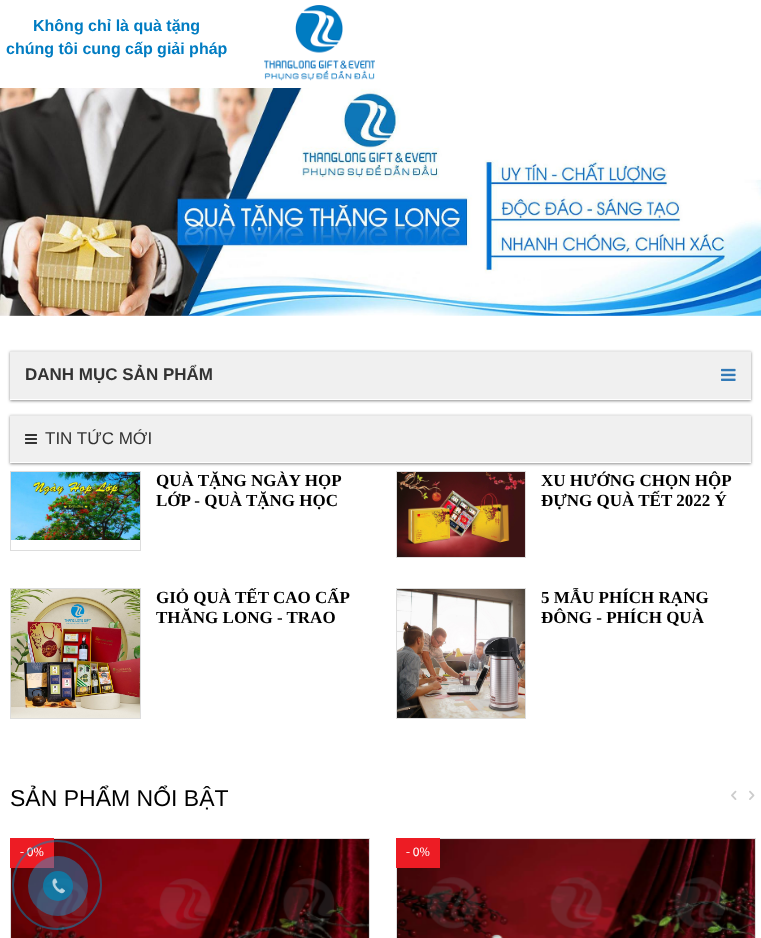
<svg xmlns="http://www.w3.org/2000/svg" width="761" height="938">
	<defs>
		<clipPath id="clip1"><rect x="156" y="588" width="210" height="40" /></clipPath>
		<clipPath id="clip2"><rect x="541" y="588" width="210" height="40" /></clipPath>
	</defs>
	<rect width="100%" height="100%" fill="#FFFFFF" />
	<g font-family="Liberation Sans" font-size="16" font-weight="700" fill="#007CC2">
		<text x="33" y="31">Không chỉ là quà tặng</text>
		<text x="6" y="54">chúng tôi cung cấp giải pháp</text>
	</g>
	<image x="264" y="5" width="111" height="76" href="assets/img1.png" />
	<image x="0" y="88" width="761" height="228" href="assets/img2.png" />
	<rect x="10" y="352" width="741" height="49" fill="#000000" fill-opacity="0.45" filter="blur(1.5px)" />
	<rect x="10" y="352" width="741" height="47" fill="#F0F0F0" />
	<rect x="10" y="351" width="741" height="1" fill="#E7E7E7" />
	<rect x="10" y="399" width="741" height="1" fill="#FFFFFF" />
	<text x="25" y="380" font-family="Liberation Sans" font-size="17" font-weight="700" fill="#333333">DANH MỤC SẢN PHẨM</text>
	<image x="721" y="368" width="15" height="13" href="assets/img3.png" />
	<rect x="10" y="416" width="741" height="48" fill="#000000" fill-opacity="0.45" filter="blur(1.5px)" />
	<rect x="10" y="416" width="741" height="46" fill="#F0F0F0" />
	<rect x="10" y="415" width="741" height="1" fill="#E7E7E7" />
	<rect x="10" y="462" width="741" height="1" fill="#FFFFFF" />
	<image x="25" y="434" width="12" height="10" href="assets/img4.png" />
	<text x="45" y="444" font-family="Liberation Sans" font-size="17" fill="#333333">TIN TỨC MỚI</text>
	<rect x="10.5" y="471.5" width="130" height="79" fill="none" stroke="#DDDDDD" />
	<image x="11" y="472" width="129" height="68" href="assets/img5.png" />
	<g font-family="Liberation Serif" font-size="17" font-weight="700" fill="#000000">
		<text x="156" y="486">QUÀ TẶNG NGÀY HỌP</text>
		<text x="156" y="506">LỚP - QUÀ TẶNG HỌC</text>
	</g>
	<rect x="396.5" y="471.5" width="129" height="86" fill="none" stroke="#DDDDDD" />
	<image x="397" y="472" width="128" height="85" href="assets/img6.png" />
	<g font-family="Liberation Serif" font-size="17" font-weight="700" fill="#000000">
		<text x="541" y="486">XU HƯỚNG CHỌN HỘP</text>
		<text x="541" y="506">ĐỰNG QUÀ TẾT 2022 Ý</text>
	</g>
	<rect x="10.5" y="588.5" width="130" height="130" fill="none" stroke="#DDDDDD" />
	<image x="11" y="589" width="129" height="129" href="assets/img7.png" />
	<g clip-path="url(#clip1)">
		<g font-family="Liberation Serif" font-size="17" font-weight="700" fill="#000000">
			<text x="156" y="603">GIỎ QUÀ TẾT CAO CẤP</text>
			<text x="156" y="623">THĂNG LONG - TRAO</text>
		</g>
	</g>
	<rect x="396.5" y="588.5" width="129" height="130" fill="none" stroke="#DDDDDD" />
	<image x="397" y="589" width="128" height="129" href="assets/img8.png" />
	<g clip-path="url(#clip2)">
		<text x="541" y="603" font-family="Liberation Serif" font-size="17" font-weight="700" fill="#000000">5 MẪU PHÍCH RẠNG</text>
	</g>
	<text x="541" y="623" font-family="Liberation Serif" font-size="17" font-weight="700" fill="#000000">ĐÔNG - PHÍCH QUÀ</text>
	<text x="10" y="806" font-family="Liberation Sans" font-size="23" fill="#000000">SẢN PHẨM NỔI BẬT</text>
	<image x="731" y="790" width="6" height="10" href="assets/img9.png" />
	<image x="749" y="790" width="6" height="10" href="assets/img10.png" />
	<rect x="10.5" y="838.5" width="359" height="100" fill="none" stroke="#DDDDDD" />
	<image x="11" y="839" width="358" height="99" href="assets/img11.png" />
	<rect x="10" y="838" width="44" height="30" fill="#ED1C24" />
	<text x="20" y="856" font-family="Myriad" font-size="13" fill="#FEFEFE">- 0%</text>
	<rect x="396.5" y="838.5" width="359" height="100" fill="none" stroke="#DDDDDD" />
	<image x="397" y="839" width="358" height="99" href="assets/img12.png" />
	<rect x="396" y="838" width="44" height="30" fill="#ED1C24" />
	<text x="406" y="856" font-family="Myriad" font-size="13" fill="#FEFEFE">- 0%</text>
	<circle cx="57" cy="885" r="44" fill="none" stroke="#0089B9" stroke-opacity="0.5" stroke-width="2" />
	<circle cx="58" cy="886" r="30" fill="#00AFF2" fill-opacity="0.38" />
	<circle cx="58" cy="886" r="15" fill="#0089B9" fill-opacity="0.7" />
	<image x="52" y="878" width="13" height="16" href="assets/img13.png" />
</svg>
